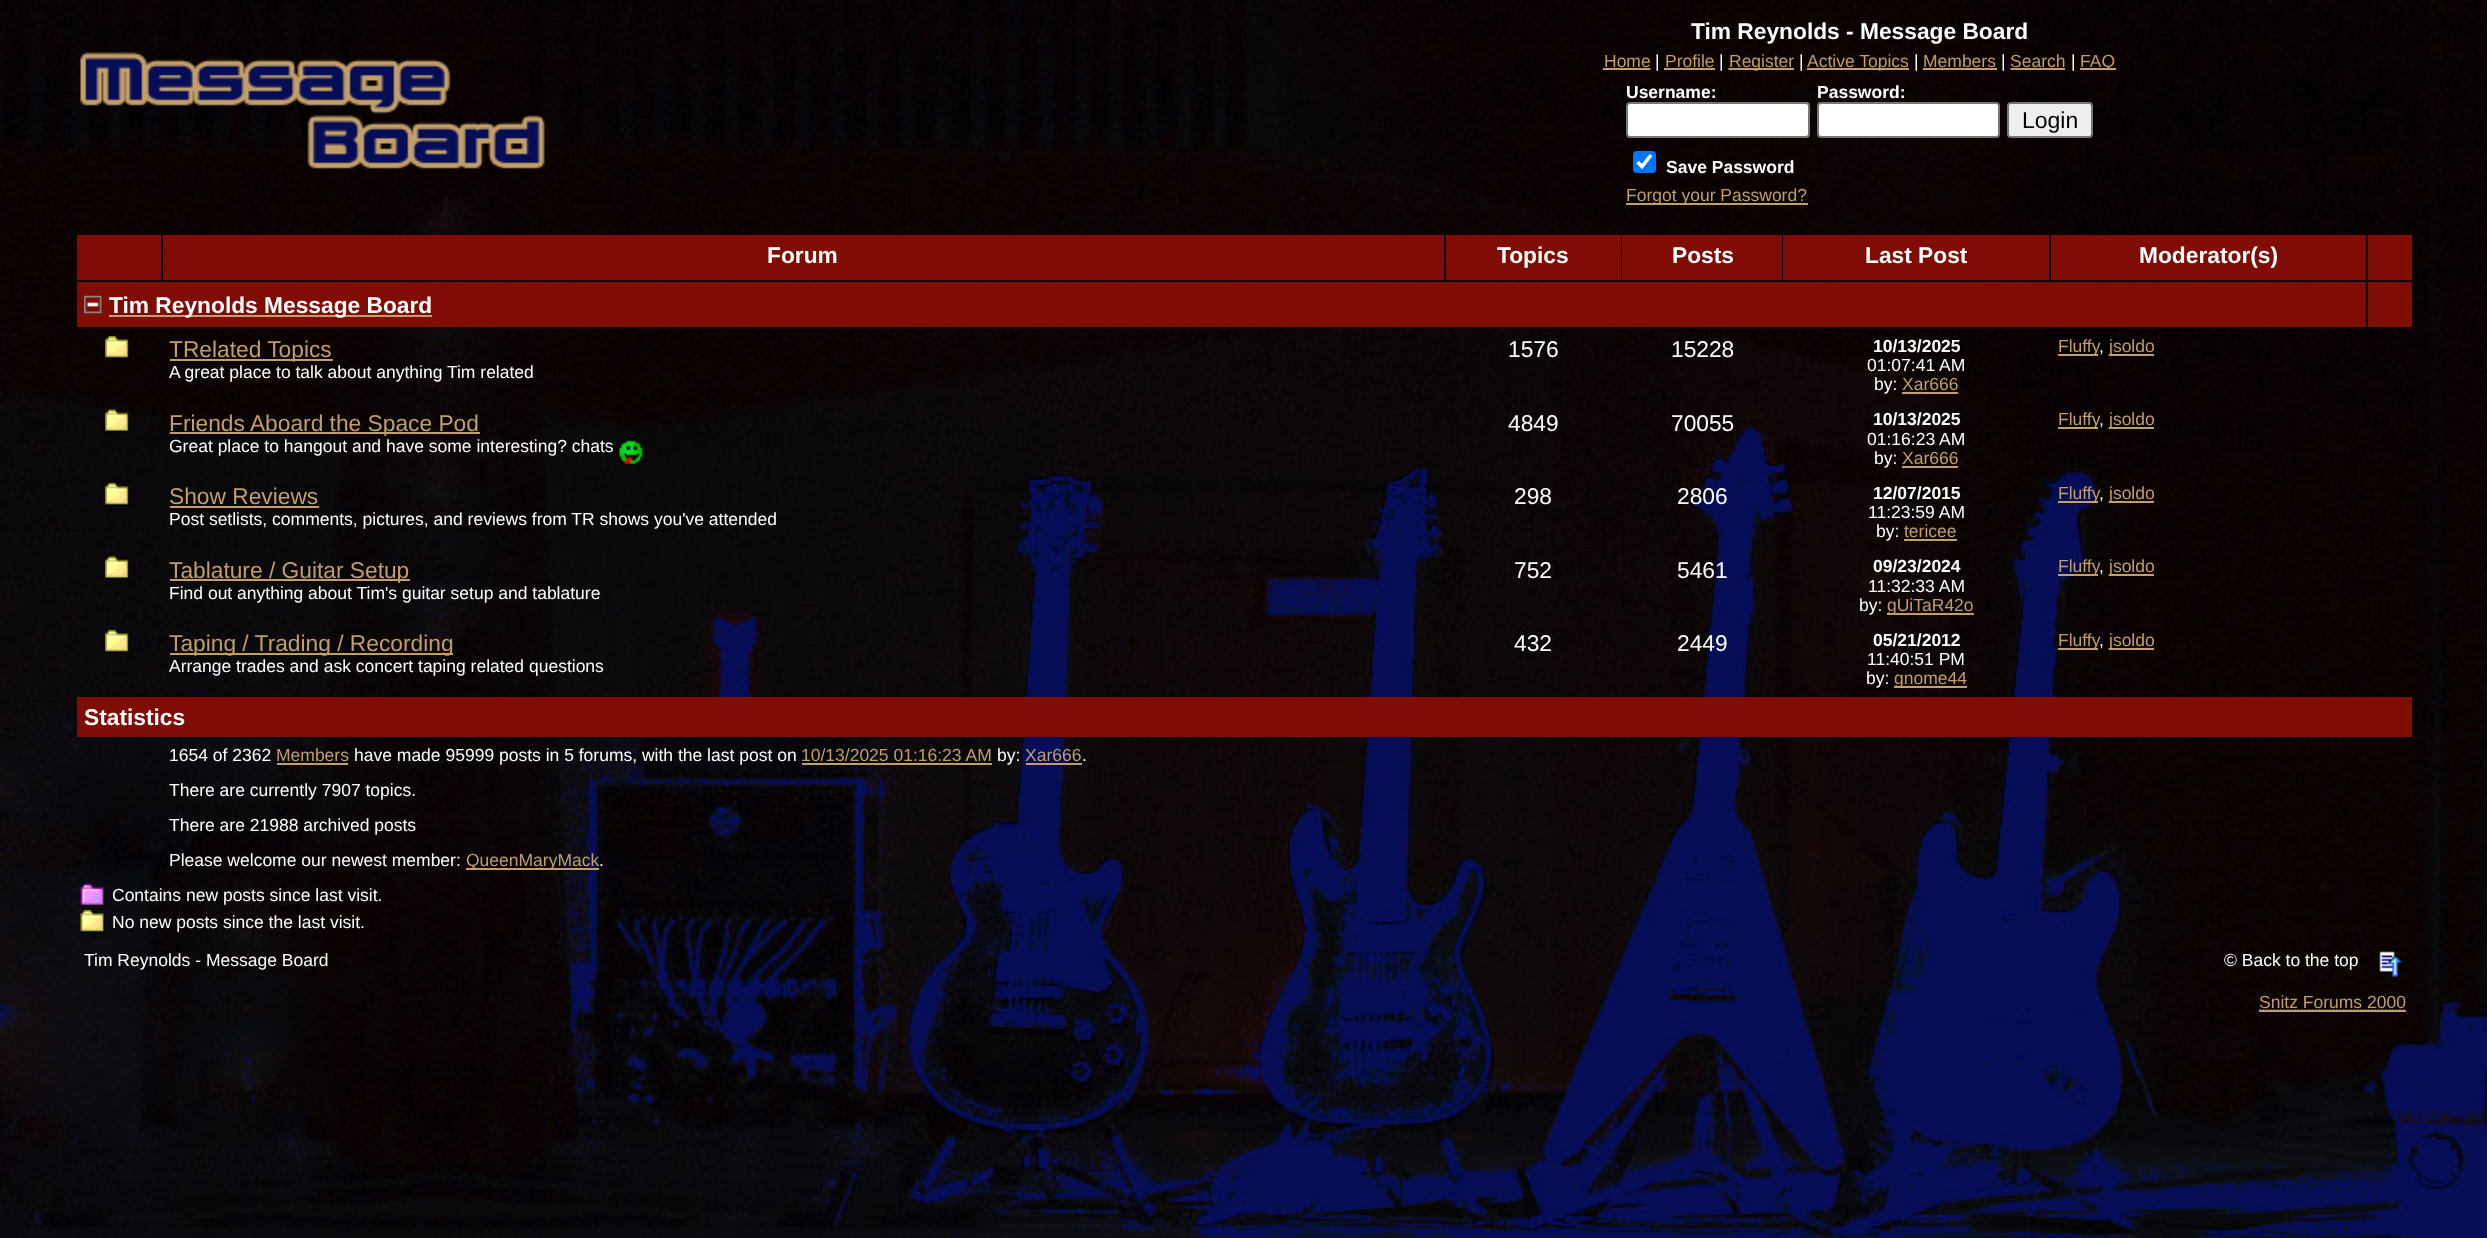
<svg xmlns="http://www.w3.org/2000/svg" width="2487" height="1238">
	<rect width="100%" height="100%" fill="#FFFFFF" />
	<image x="0" y="0" width="2487" height="1238" href="assets/img1.png" />
	<image x="80" y="52" width="465" height="117" href="assets/img2.png" />
	<text x="1691" y="39" font-family="Liberation Sans" font-size="22.75" font-weight="700" fill="#FFFFFF">Tim Reynolds - Message Board</text>
	<text x="1604" y="67" font-family="Liberation Sans" font-size="17.5" fill="#C39E69">Home</text>
	<path d="M1603.5 69H1650.5" fill="none" stroke="#C39E69" stroke-width="1.8" stroke-dasharray="1.75 1.75" />
	<rect x="1603" y="68" width="47" height="2" fill="#C39E69" />
	<text x="1655" y="67" font-family="Liberation Sans" font-size="17.5" fill="#FFFFFF">|</text>
	<text x="1665" y="67" font-family="Liberation Sans" font-size="17.5" fill="#C39E69">Profile</text>
	<rect x="1664" y="68" width="51" height="2" fill="#C39E69" />
	<text x="1719" y="67" font-family="Liberation Sans" font-size="17.5" fill="#FFFFFF">|</text>
	<path d="M1728.5 69H1793.5" fill="none" stroke="#C39E69" stroke-width="1.8" stroke-dasharray="1.75 1.75" />
	<rect x="1729" y="68" width="65" height="2" fill="#C39E69" />
	<text x="1729" y="67" font-family="Liberation Sans" font-size="17.5" fill="#C39E69">Register</text>
	<text x="1799" y="67" font-family="Liberation Sans" font-size="17.5" fill="#FFFFFF">|</text>
	<path d="M1807 69H1909" fill="none" stroke="#C39E69" stroke-width="1.8" stroke-dasharray="1.75 1.75" />
	<rect x="1808" y="68" width="101" height="2" fill="#C39E69" />
	<text x="1807" y="67" font-family="Liberation Sans" font-size="17.5" fill="#C39E69">Active Topics</text>
	<text x="1914" y="67" font-family="Liberation Sans" font-size="17.5" fill="#FFFFFF">|</text>
	<text x="1923" y="67" font-family="Liberation Sans" font-size="17.5" fill="#C39E69">Members</text>
	<rect x="1923" y="68" width="74" height="2" fill="#C39E69" />
	<text x="2001" y="67" font-family="Liberation Sans" font-size="17.5" fill="#FFFFFF">|</text>
	<text x="2010" y="67" font-family="Liberation Sans" font-size="17.5" fill="#C39E69">Search</text>
	<path d="M2010.5 69H2066" fill="none" stroke="#C39E69" stroke-width="1.8" stroke-dasharray="1.75 1.75" />
	<rect x="2011" y="68" width="54" height="2" fill="#C39E69" />
	<text x="2071" y="67" font-family="Liberation Sans" font-size="17.5" fill="#FFFFFF">|</text>
	<path d="M2080 69H2115" fill="none" stroke="#C39E69" stroke-width="1.8" stroke-dasharray="1.75 1.75" />
	<rect x="2081" y="68" width="35" height="2" fill="#C39E69" />
	<text x="2080" y="67" font-family="Liberation Sans" font-size="17.5" fill="#C39E69">FAQ</text>
	<text x="1626" y="98" font-family="Liberation Sans" font-size="17.5" font-weight="700" fill="#FFFFFF">Username:</text>
	<rect x="1627" y="103" width="182" height="34" rx="3" fill="#FFFFFF" stroke="#767676" stroke-width="2" />
	<text x="1817" y="98" font-family="Liberation Sans" font-size="17.5" font-weight="700" fill="#FFFFFF">Password:</text>
	<rect x="1818" y="103" width="181" height="34" rx="3" fill="#FFFFFF" stroke="#767676" stroke-width="2" />
	<rect x="2008" y="103" width="84" height="34" rx="3" fill="#EFEFEF" stroke="#767676" stroke-width="2" />
	<text x="2022" y="128" font-family="Liberation Sans" font-size="23" fill="#000000">Login</text>
	<rect x="1633" y="151" width="23" height="22" rx="4" fill="#0075FF" />
	<path d="M1637.5 162L1642 166.5L1651 155" fill="none" stroke="#FFFFFF" stroke-width="3.6" />
	<text x="1666" y="173" font-family="Liberation Sans" font-size="17.5" font-weight="700" fill="#FFFFFF">Save Password</text>
	<rect x="1626" y="203" width="182" height="2" fill="#C39E69" />
	<text x="1626" y="201" font-family="Liberation Sans" font-size="17.5" fill="#C39E69">Forgot your Password?</text>
	<rect x="77" y="235" width="84" height="45" fill="#7F0C05" />
	<rect x="163" y="235" width="1281" height="45" fill="#7F0C05" />
	<text x="767" y="263" font-family="Liberation Sans" font-size="22.75" font-weight="700" fill="#FFFFFF">Forum</text>
	<rect x="1446" y="235" width="175" height="45" fill="#7F0C05" />
	<text x="1497" y="263" font-family="Liberation Sans" font-size="22.75" font-weight="700" fill="#FFFFFF">Topics</text>
	<rect x="1622" y="235" width="160" height="45" fill="#7F0C05" />
	<text x="1672" y="263" font-family="Liberation Sans" font-size="22.75" font-weight="700" fill="#FFFFFF">Posts</text>
	<rect x="1783" y="235" width="266" height="45" fill="#7F0C05" />
	<text x="1865" y="263" font-family="Liberation Sans" font-size="22.75" font-weight="700" fill="#FFFFFF">Last Post</text>
	<rect x="2051" y="235" width="315" height="45" fill="#7F0C05" />
	<text x="2139" y="263" font-family="Liberation Sans" font-size="22.75" font-weight="700" fill="#FFFFFF">Moderator(s)</text>
	<rect x="2368" y="235" width="44" height="45" fill="#7F0C05" />
	<rect x="77" y="282" width="2289" height="45" fill="#7F0C05" />
	<image x="84" y="295" width="18" height="19" href="assets/img3.png" />
	<rect x="109" y="315" width="323" height="2" fill="#C39E69" />
	<text x="109" y="313" font-family="Liberation Sans" font-size="22.75" font-weight="700" fill="#FFFFFF">Tim Reynolds Message Board</text>
	<rect x="2368" y="282" width="44" height="45" fill="#7F0C05" />
	<image x="105" y="336" width="25" height="23" href="assets/img4.png" />
	<rect x="170" y="359" width="163" height="2" fill="#C39E69" />
	<text x="169" y="357" font-family="Liberation Sans" font-size="22.75" fill="#C39E69">TRelated Topics</text>
	<text x="169" y="378" font-family="Liberation Sans" font-size="17.5" fill="#FFFFFF">A great place to talk about anything Tim related</text>
	<g font-family="Liberation Sans" font-size="22.75" fill="#FFFFFF">
		<text x="1508" y="357">1576</text>
		<text x="1671" y="357">15228</text>
	</g>
	<text x="1873" y="352" font-family="Liberation Sans" font-size="17.5" font-weight="700" fill="#FFFFFF">10/13/2025</text>
	<g font-family="Liberation Sans" font-size="17.5" fill="#FFFFFF">
		<text x="1867" y="371">01:07:41 AM</text>
		<text x="1874" y="390">by:</text>
	</g>
	<text x="1902" y="390" font-family="Liberation Sans" font-size="17.5" fill="#C39E69">Xar666</text>
	<rect x="1902" y="392" width="56" height="2" fill="#C39E69" />
	<rect x="2058" y="354" width="40" height="2" fill="#C39E69" />
	<text x="2058" y="352" font-family="Liberation Sans" font-size="17.5" fill="#C39E69">Fluffy</text>
	<text x="2099" y="352" font-family="Liberation Sans" font-size="17.5" fill="#FFFFFF">,</text>
	<rect x="2109" y="354" width="45" height="2" fill="#C39E69" />
	<text x="2109" y="352" font-family="Liberation Sans" font-size="17.5" fill="#C39E69">jsoldo</text>
	<image x="105" y="409" width="25" height="24" href="assets/img5.png" />
	<rect x="170" y="432" width="310" height="2" fill="#C39E69" />
	<text x="169" y="431" font-family="Liberation Sans" font-size="22.75" fill="#C39E69">Friends Aboard the Space Pod</text>
	<text x="169" y="452" font-family="Liberation Sans" font-size="17.5" fill="#FFFFFF">Great place to hangout and have some interesting? chats</text>
	<image x="618" y="439" width="26" height="27" href="assets/img6.png" />
	<g font-family="Liberation Sans" font-size="22.75" fill="#FFFFFF">
		<text x="1508" y="431">4849</text>
		<text x="1671" y="431">70055</text>
	</g>
	<text x="1873" y="425" font-family="Liberation Sans" font-size="17.5" font-weight="700" fill="#FFFFFF">10/13/2025</text>
	<g font-family="Liberation Sans" font-size="17.5" fill="#FFFFFF">
		<text x="1867" y="445">01:16:23 AM</text>
		<text x="1874" y="464">by:</text>
	</g>
	<text x="1902" y="464" font-family="Liberation Sans" font-size="17.5" fill="#C39E69">Xar666</text>
	<rect x="1902" y="466" width="56" height="2" fill="#C39E69" />
	<rect x="2058" y="427" width="40" height="2" fill="#C39E69" />
	<text x="2058" y="425" font-family="Liberation Sans" font-size="17.5" fill="#C39E69">Fluffy</text>
	<text x="2099" y="425" font-family="Liberation Sans" font-size="17.5" fill="#FFFFFF">,</text>
	<rect x="2109" y="427" width="45" height="2" fill="#C39E69" />
	<text x="2109" y="425" font-family="Liberation Sans" font-size="17.5" fill="#C39E69">jsoldo</text>
	<image x="105" y="483" width="25" height="23" href="assets/img7.png" />
	<text x="169" y="504" font-family="Liberation Sans" font-size="22.75" fill="#C39E69">Show Reviews</text>
	<rect x="170" y="506" width="149" height="2" fill="#C39E69" />
	<text x="169" y="525" font-family="Liberation Sans" font-size="17.5" fill="#FFFFFF">Post setlists, comments, pictures, and reviews from TR shows you've attended</text>
	<g font-family="Liberation Sans" font-size="22.75" fill="#FFFFFF">
		<text x="1514" y="504">298</text>
		<text x="1677" y="504">2806</text>
	</g>
	<text x="1873" y="499" font-family="Liberation Sans" font-size="17.5" font-weight="700" fill="#FFFFFF">12/07/2015</text>
	<g font-family="Liberation Sans" font-size="17.5" fill="#FFFFFF">
		<text x="1868" y="518">11:23:59 AM</text>
		<text x="1876" y="537">by:</text>
	</g>
	<text x="1904" y="537" font-family="Liberation Sans" font-size="17.5" fill="#C39E69">tericee</text>
	<rect x="1904" y="539" width="53" height="2" fill="#C39E69" />
	<rect x="2058" y="501" width="40" height="2" fill="#C39E69" />
	<text x="2058" y="499" font-family="Liberation Sans" font-size="17.5" fill="#C39E69">Fluffy</text>
	<text x="2099" y="499" font-family="Liberation Sans" font-size="17.5" fill="#FFFFFF">,</text>
	<rect x="2109" y="501" width="45" height="2" fill="#C39E69" />
	<text x="2109" y="499" font-family="Liberation Sans" font-size="17.5" fill="#C39E69">jsoldo</text>
	<image x="105" y="556" width="25" height="24" href="assets/img8.png" />
	<rect x="170" y="579" width="240" height="2" fill="#C39E69" />
	<text x="169" y="578" font-family="Liberation Sans" font-size="22.75" fill="#C39E69">Tablature / Guitar Setup</text>
	<text x="169" y="599" font-family="Liberation Sans" font-size="17.5" fill="#FFFFFF">Find out anything about Tim's guitar setup and tablature</text>
	<g font-family="Liberation Sans" font-size="22.75" fill="#FFFFFF">
		<text x="1514" y="578">752</text>
		<text x="1677" y="578">5461</text>
	</g>
	<text x="1873" y="572" font-family="Liberation Sans" font-size="17.5" font-weight="700" fill="#FFFFFF">09/23/2024</text>
	<g font-family="Liberation Sans" font-size="17.5" fill="#FFFFFF">
		<text x="1868" y="592">11:32:33 AM</text>
		<text x="1859" y="611">by:</text>
	</g>
	<rect x="1887" y="613" width="87" height="2" fill="#C39E69" />
	<text x="1887" y="611" font-family="Liberation Sans" font-size="17.5" fill="#C39E69">gUiTaR42o</text>
	<rect x="2058" y="574" width="40" height="2" fill="#C39E69" />
	<text x="2058" y="572" font-family="Liberation Sans" font-size="17.5" fill="#C39E69">Fluffy</text>
	<text x="2099" y="572" font-family="Liberation Sans" font-size="17.5" fill="#FFFFFF">,</text>
	<rect x="2109" y="574" width="45" height="2" fill="#C39E69" />
	<text x="2109" y="572" font-family="Liberation Sans" font-size="17.5" fill="#C39E69">jsoldo</text>
	<image x="105" y="630" width="25" height="23" href="assets/img9.png" />
	<rect x="170" y="653" width="283" height="2" fill="#C39E69" />
	<text x="169" y="651" font-family="Liberation Sans" font-size="22.75" fill="#C39E69">Taping / Trading / Recording</text>
	<text x="169" y="672" font-family="Liberation Sans" font-size="17.5" fill="#FFFFFF">Arrange trades and ask concert taping related questions</text>
	<g font-family="Liberation Sans" font-size="22.75" fill="#FFFFFF">
		<text x="1514" y="651">432</text>
		<text x="1677" y="651">2449</text>
	</g>
	<text x="1873" y="646" font-family="Liberation Sans" font-size="17.5" font-weight="700" fill="#FFFFFF">05/21/2012</text>
	<g font-family="Liberation Sans" font-size="17.5" fill="#FFFFFF">
		<text x="1867" y="665">11:40:51 PM</text>
		<text x="1866" y="684">by:</text>
	</g>
	<rect x="1894" y="686" width="73" height="2" fill="#C39E69" />
	<text x="1894" y="684" font-family="Liberation Sans" font-size="17.5" fill="#C39E69">gnome44</text>
	<rect x="2058" y="648" width="40" height="2" fill="#C39E69" />
	<text x="2058" y="646" font-family="Liberation Sans" font-size="17.5" fill="#C39E69">Fluffy</text>
	<text x="2099" y="646" font-family="Liberation Sans" font-size="17.5" fill="#FFFFFF">,</text>
	<rect x="2109" y="648" width="45" height="2" fill="#C39E69" />
	<text x="2109" y="646" font-family="Liberation Sans" font-size="17.5" fill="#C39E69">jsoldo</text>
	<rect x="77" y="697" width="2335" height="40" fill="#7F0C05" />
	<text x="84" y="725" font-family="Liberation Sans" font-size="22.75" font-weight="700" fill="#FFFFFF">Statistics</text>
	<text x="169" y="761" font-family="Liberation Sans" font-size="17.5" fill="#FFFFFF">1654 of 2362</text>
	<text x="276" y="761" font-family="Liberation Sans" font-size="17.5" fill="#C39E69">Members</text>
	<rect x="277" y="763" width="71" height="2" fill="#C39E69" />
	<text x="354" y="761" font-family="Liberation Sans" font-size="17.5" fill="#FFFFFF">have made 95999 posts in 5 forums, with the last post on</text>
	<text x="801" y="761" font-family="Liberation Sans" font-size="17.5" fill="#C39E69">10/13/2025 01:16:23 AM</text>
	<rect x="802" y="763" width="190" height="2" fill="#C39E69" />
	<text x="997" y="761" font-family="Liberation Sans" font-size="17.5" fill="#FFFFFF">by:</text>
	<text x="1025" y="761" font-family="Liberation Sans" font-size="17.5" fill="#C39E69">Xar666</text>
	<text x="1082" y="761" font-family="Liberation Sans" font-size="17.5" fill="#FFFFFF">.</text>
	<rect x="1026" y="763" width="56" height="2" fill="#C39E69" />
	<g font-family="Liberation Sans" font-size="17.5" fill="#FFFFFF">
		<text x="169" y="796">There are currently 7907 topics.</text>
		<text x="169" y="831">There are 21988 archived posts</text>
		<text x="169" y="866">Please welcome our newest member:</text>
	</g>
	<rect x="466" y="868" width="133" height="2" fill="#C39E69" />
	<text x="466" y="866" font-family="Liberation Sans" font-size="17.5" fill="#C39E69">QueenMaryMack</text>
	<text x="599" y="866" font-family="Liberation Sans" font-size="17.5" fill="#FFFFFF">.</text>
	<image x="80" y="883" width="26" height="24" href="assets/img10.png" />
	<text x="112" y="901" font-family="Liberation Sans" font-size="17.5" fill="#FFFFFF">Contains new posts since last visit.</text>
	<image x="80" y="910" width="26" height="23" href="assets/img11.png" />
	<g font-family="Liberation Sans" font-size="17.5" fill="#FFFFFF">
		<text x="112" y="928">No new posts since the last visit.</text>
		<text x="84" y="966">Tim Reynolds - Message Board</text>
		<text x="2224" y="966">© Back to the top</text>
	</g>
	<image x="2378" y="950" width="27" height="27" href="assets/img12.png" />
	<text x="2259" y="1008" font-family="Liberation Sans" font-size="17.5" fill="#C39E69">Snitz Forums 2000</text>
	<path d="M2259 1010.5H2406" fill="none" stroke="#C39E69" stroke-width="1.8" stroke-dasharray="1.75 1.75" />
	<rect x="2259" y="1010" width="147" height="2" fill="#C39E69" />
</svg>
